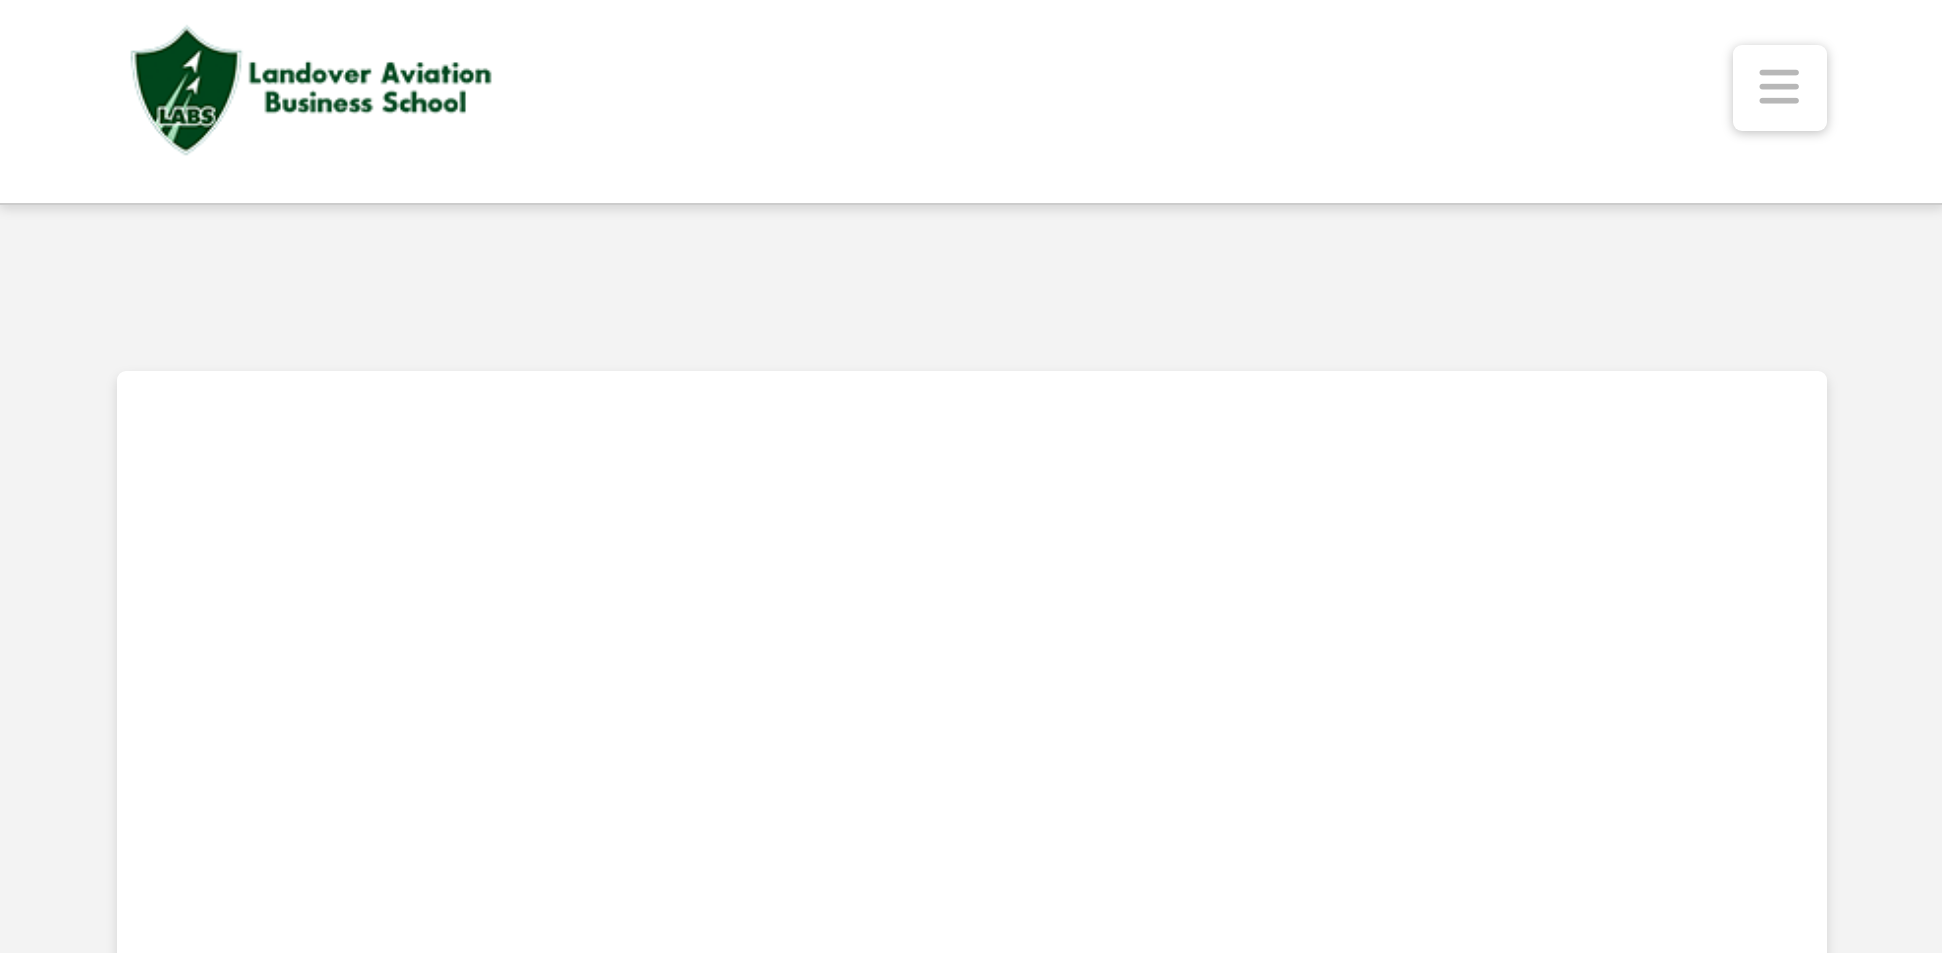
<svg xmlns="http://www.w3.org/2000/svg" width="1942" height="953">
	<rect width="100%" height="100%" fill="#F3F3F3" />
	<rect x="0" y="5" width="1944" height="204" fill="#000000" fill-opacity="0.13" filter="blur(5.5px)" />
	<rect x="0" y="0" width="1942" height="203" fill="#FFFFFF" />
	<rect x="0" y="203" width="1942" height="2" fill="#CCCCCC" />
	<image x="130" y="24" width="362" height="132" href="assets/img1.png" />
	<rect x="1733" y="47" width="94" height="86" rx="9" fill="#000000" fill-opacity="0.25" filter="blur(5.5px)" />
	<rect x="1733" y="45" width="94" height="86" rx="9" fill="#FFFFFF" />
	<image x="1759" y="69" width="40" height="35" href="assets/img2.png" />
	<rect x="117" y="376" width="1710" height="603" rx="9" fill="#000000" fill-opacity="0.13" filter="blur(5.5px)" />
	<rect x="117" y="371" width="1710" height="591" rx="9" fill="#FFFFFF" />
</svg>
